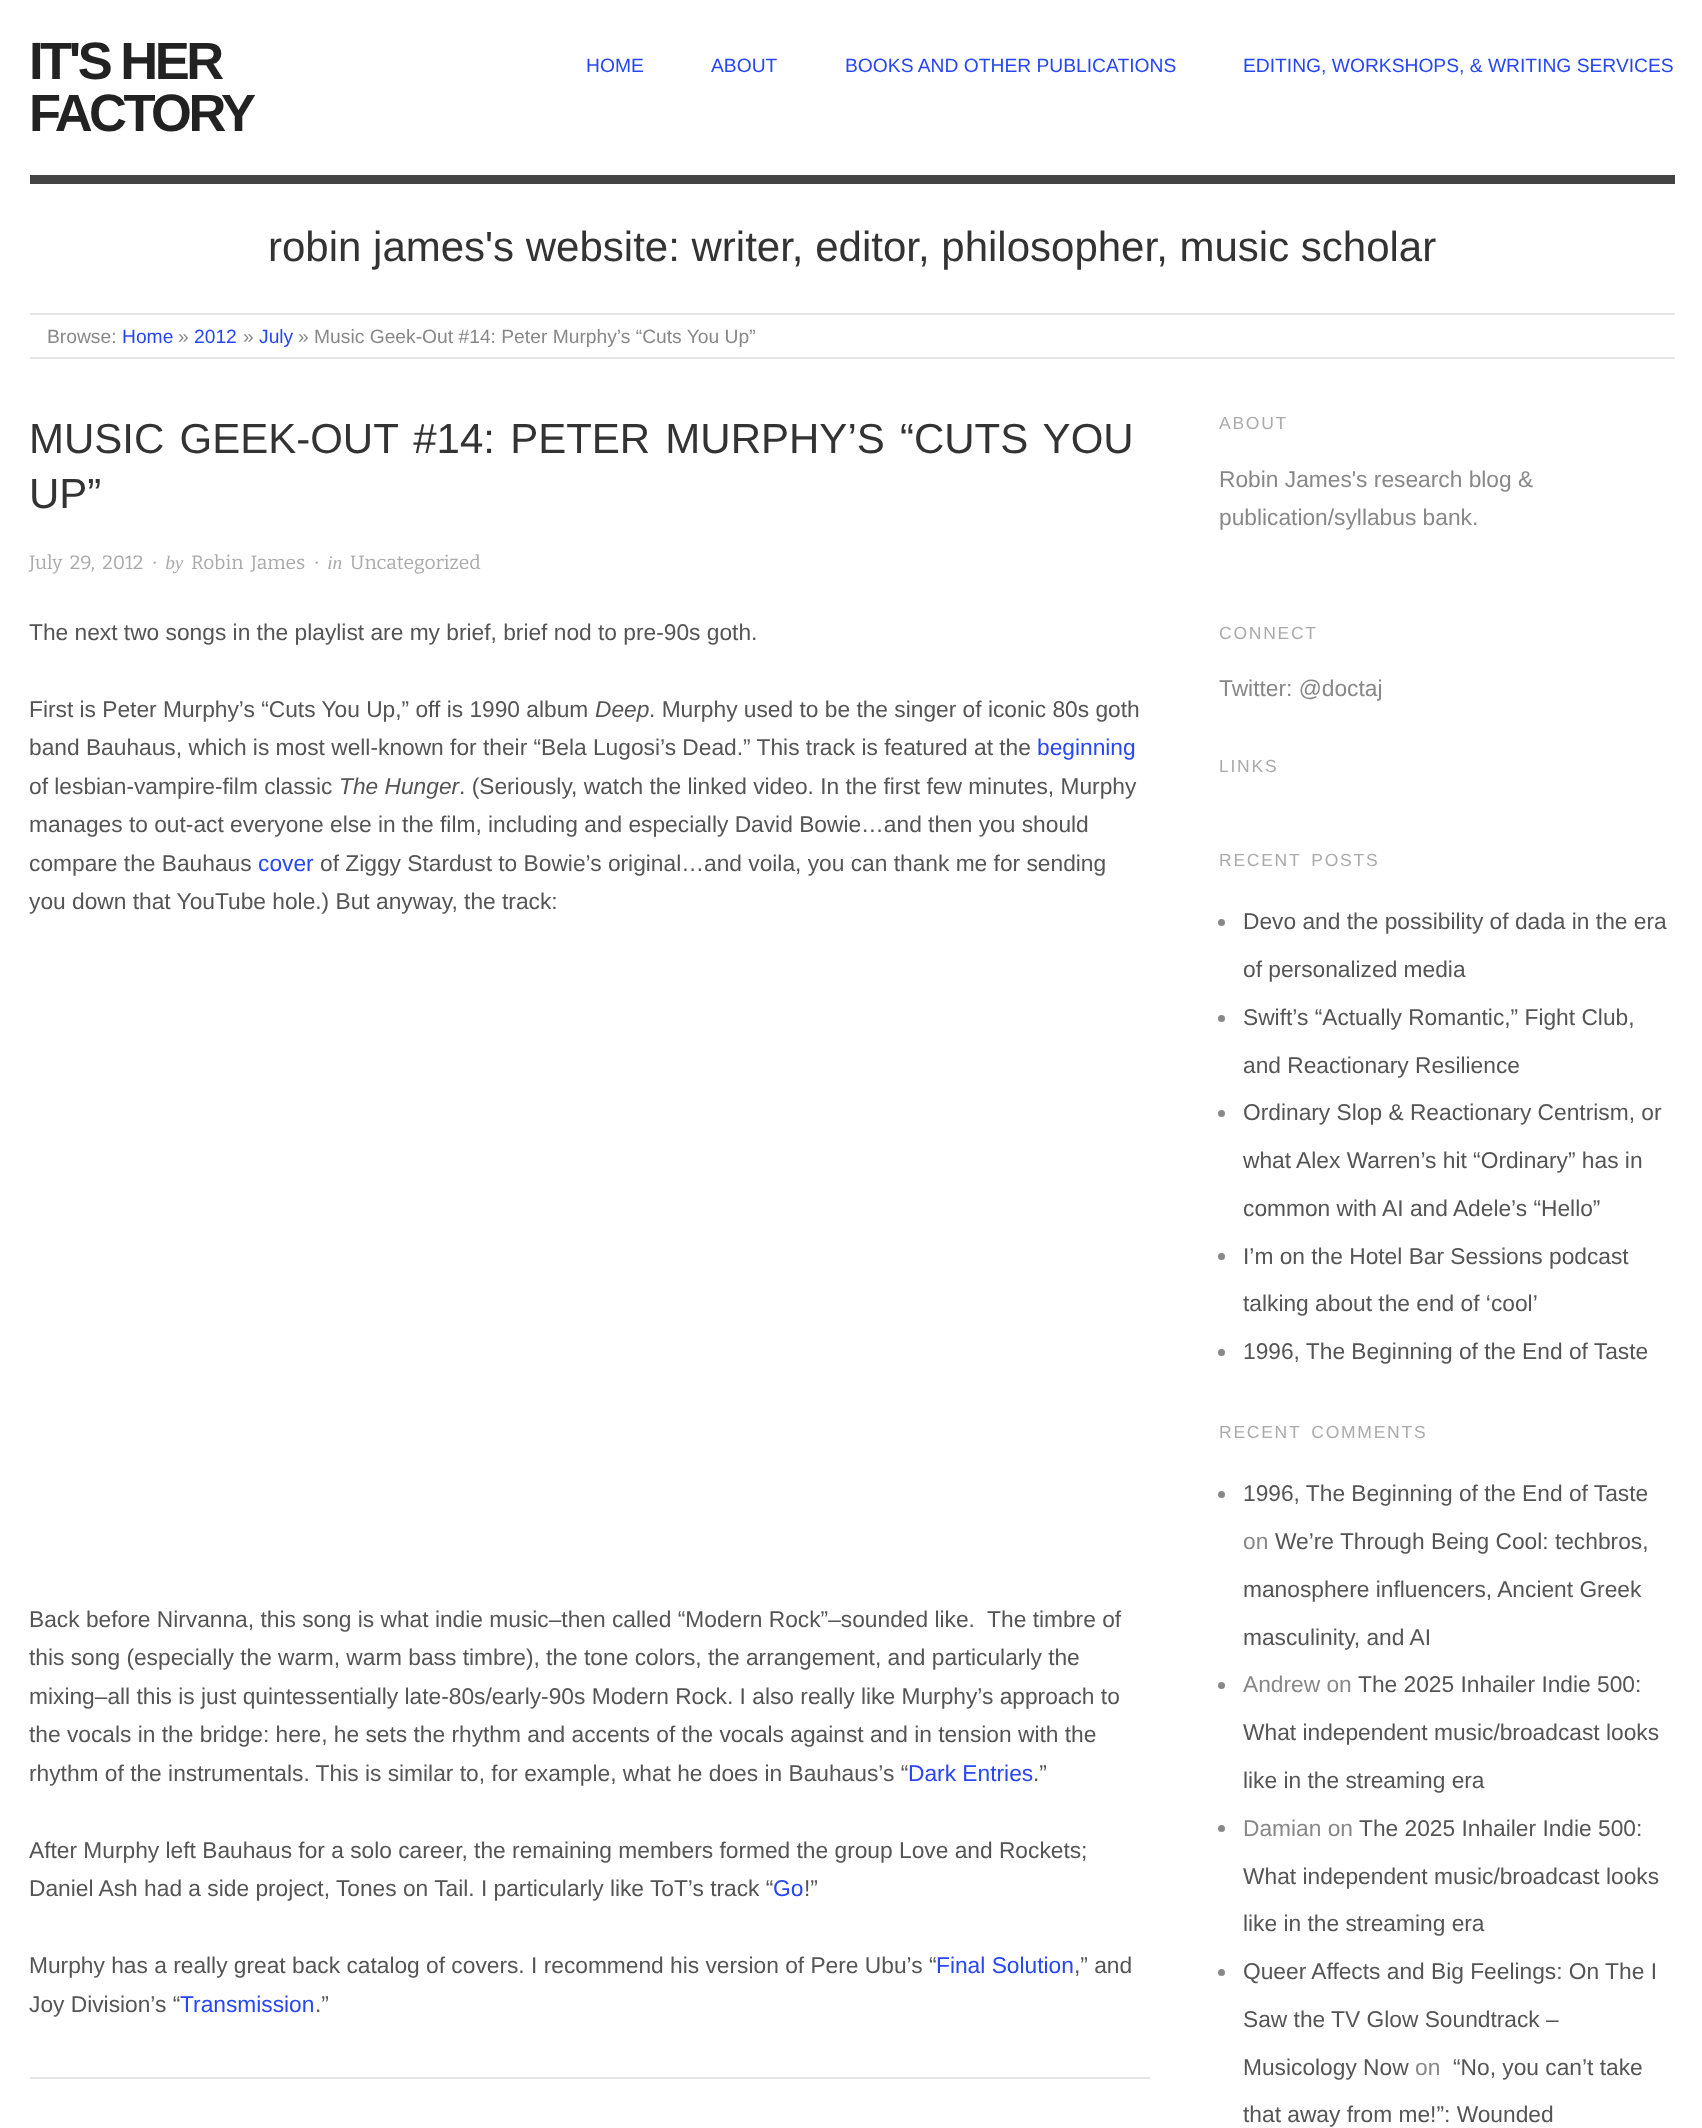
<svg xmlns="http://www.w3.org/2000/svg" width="1702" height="2128">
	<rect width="100%" height="100%" fill="#FFFFFF" />
	<g font-family="Liberation Sans" font-size="52.5" font-weight="700" letter-spacing="-3.5" fill="#222222">
		<text x="29" y="79">IT'S HER</text>
		<text x="29" y="131">FACTORY</text>
	</g>
	<g font-family="Liberation Sans" font-size="19.25" fill="#2746F7">
		<text x="586" y="72">HOME</text>
		<text x="711" y="72">ABOUT</text>
		<text x="845" y="72">BOOKS AND OTHER PUBLICATIONS</text>
		<text x="1243" y="72">EDITING, WORKSHOPS, &amp; WRITING SERVICES</text>
	</g>
	<rect x="30" y="175" width="1645" height="9" fill="#444444" />
	<text x="268" y="261" font-family="Liberation Sans" font-size="42" fill="#333333">robin james's website: writer, editor, philosopher, music scholar</text>
	<rect x="30" y="313" width="1645" height="2" fill="#E5E5E5" />
	<rect x="30" y="357" width="1645" height="2" fill="#E5E5E5" />
	<text x="47" y="343" font-family="Liberation Sans" font-size="19.25" fill="#888888">Browse:</text>
	<text x="122" y="343" font-family="Liberation Sans" font-size="19.25" fill="#2746F7">Home</text>
	<text x="178" y="343" font-family="Liberation Sans" font-size="19.25" fill="#888888">»</text>
	<text x="194" y="343" font-family="Liberation Sans" font-size="19.25" fill="#2746F7">2012</text>
	<text x="243" y="343" font-family="Liberation Sans" font-size="19.25" fill="#888888">»</text>
	<text x="259" y="343" font-family="Liberation Sans" font-size="19.25" fill="#2746F7">July</text>
	<text x="298" y="343" font-family="Liberation Sans" font-size="19.25" fill="#888888">» Music Geek-Out #14: Peter Murphy’s “Cuts You Up”</text>
	<rect x="30" y="2077" width="1120" height="2" fill="#E5E5E5" />
	<g font-family="Liberation Sans" font-size="42" fill="#333333">
		<text x="29" y="453" word-spacing="3.5">MUSIC GEEK-OUT #14: PETER MURPHY’S “CUTS YOU</text>
		<text x="29" y="508">UP”</text>
	</g>
	<text x="29" y="569" word-spacing="3.5" font-family="Bitter" font-size="19.25" fill="#AAAAAA">July 29, 2012</text>
	<text x="152" y="569" word-spacing="3.5" font-family="Liberation Serif" font-size="19.25" font-style="italic" fill="#AAAAAA">· by</text>
	<text x="191" y="569" word-spacing="3.5" font-family="Bitter" font-size="19.25" fill="#AAAAAA">Robin James</text>
	<text x="314" y="569" word-spacing="3.5" font-family="Liberation Serif" font-size="19.25" font-style="italic" fill="#AAAAAA">· in</text>
	<text x="350" y="569" font-family="Bitter" font-size="19.25" fill="#AAAAAA">Uncategorized</text>
	<g font-family="Liberation Sans" font-size="22.75" fill="#555555">
		<text x="29" y="640">The next two songs in the playlist are my brief, brief nod to pre-90s goth.</text>
		<text x="29" y="717">First is Peter Murphy’s “Cuts You Up,” off is 1990 album</text>
	</g>
	<text x="595" y="717" font-family="Liberation Sans" font-size="22.75" font-style="italic" fill="#555555">Deep</text>
	<g font-family="Liberation Sans" font-size="22.75" fill="#555555">
		<text x="649" y="717">. Murphy used to be the singer of iconic 80s goth</text>
		<text x="29" y="755">band Bauhaus, which is most well-known for their “Bela Lugosi’s Dead.” This track is featured at the</text>
	</g>
	<text x="1037" y="755" font-family="Liberation Sans" font-size="22.75" fill="#2746F7">beginning</text>
	<text x="29" y="794" font-family="Liberation Sans" font-size="22.75" fill="#555555">of lesbian-vampire-film classic</text>
	<text x="339" y="794" font-family="Liberation Sans" font-size="22.75" font-style="italic" fill="#555555">The Hunger</text>
	<g font-family="Liberation Sans" font-size="22.75" fill="#555555">
		<text x="459" y="794">. (Seriously, watch the linked video. In the first few minutes, Murphy</text>
		<text x="29" y="832">manages to out-act everyone else in the film, including and especially David Bowie…and then you should</text>
		<text x="29" y="871">compare the Bauhaus</text>
	</g>
	<text x="258" y="871" font-family="Liberation Sans" font-size="22.75" fill="#2746F7">cover</text>
	<g font-family="Liberation Sans" font-size="22.75" fill="#555555">
		<text x="320" y="871">of Ziggy Stardust to Bowie’s original…and voila, you can thank me for sending</text>
		<text x="29" y="909">you down that YouTube hole.) But anyway, the track:</text>
		<text x="29" y="1627" xml:space="preserve">Back before Nirvanna, this song is what indie music–then called “Modern Rock”–sounded like.  The timbre of</text>
		<text x="29" y="1665">this song (especially the warm, warm bass timbre), the tone colors, the arrangement, and particularly the</text>
		<text x="29" y="1704">mixing–all this is just quintessentially late-80s/early-90s Modern Rock. I also really like Murphy’s approach to</text>
		<text x="29" y="1742">the vocals in the bridge: here, he sets the rhythm and accents of the vocals against and in tension with the</text>
		<text x="29" y="1781">rhythm of the instrumentals. This is similar to, for example, what he does in Bauhaus’s “</text>
	</g>
	<text x="908" y="1781" font-family="Liberation Sans" font-size="22.75" fill="#2746F7">Dark Entries</text>
	<g font-family="Liberation Sans" font-size="22.75" fill="#555555">
		<text x="1033" y="1781">.”</text>
		<text x="29" y="1858">After Murphy left Bauhaus for a solo career, the remaining members formed the group Love and Rockets;</text>
		<text x="29" y="1896">Daniel Ash had a side project, Tones on Tail. I particularly like ToT’s track “</text>
	</g>
	<text x="773" y="1896" font-family="Liberation Sans" font-size="22.75" fill="#2746F7">Go</text>
	<g font-family="Liberation Sans" font-size="22.75" fill="#555555">
		<text x="804" y="1896">!”</text>
		<text x="29" y="1973">Murphy has a really great back catalog of covers. I recommend his version of Pere Ubu’s “</text>
	</g>
	<text x="936" y="1973" font-family="Liberation Sans" font-size="22.75" fill="#2746F7">Final Solution</text>
	<g font-family="Liberation Sans" font-size="22.75" fill="#555555">
		<text x="1074" y="1973">,” and</text>
		<text x="29" y="2012">Joy Division’s “</text>
	</g>
	<text x="180" y="2012" font-family="Liberation Sans" font-size="22.75" fill="#2746F7">Transmission</text>
	<text x="315" y="2012" font-family="Liberation Sans" font-size="22.75" fill="#555555">.”</text>
	<text x="1219" y="429" font-family="Liberation Sans" font-size="17.5" letter-spacing="1.75" fill="#AAAAAA">ABOUT</text>
	<g font-family="Liberation Sans" font-size="22.75" fill="#888888">
		<text x="1219" y="487">Robin James's research blog &amp;</text>
		<text x="1219" y="525">publication/syllabus bank.</text>
	</g>
	<text x="1219" y="639" font-family="Liberation Sans" font-size="17.5" letter-spacing="1.75" fill="#AAAAAA">CONNECT</text>
	<text x="1219" y="696" font-family="Liberation Sans" font-size="22.75" fill="#888888">Twitter: @doctaj</text>
	<g font-family="Liberation Sans" font-size="17.5" letter-spacing="1.75" fill="#AAAAAA">
		<text x="1219" y="772">LINKS</text>
		<text x="1219" y="866" word-spacing="3.5">RECENT POSTS</text>
	</g>
	<circle cx="1221.5" cy="922.5" r="3.5" fill="#888888" />
	<g font-family="Liberation Sans" font-size="22.75" fill="#555555">
		<text x="1243" y="929">Devo and the possibility of dada in the era</text>
		<text x="1243" y="977">of personalized media</text>
	</g>
	<circle cx="1221.5" cy="1018.5" r="3.5" fill="#888888" />
	<g font-family="Liberation Sans" font-size="22.75" fill="#555555">
		<text x="1243" y="1025">Swift’s “Actually Romantic,” Fight Club,</text>
		<text x="1243" y="1073">and Reactionary Resilience</text>
	</g>
	<circle cx="1221.5" cy="1113.5" r="3.5" fill="#888888" />
	<g font-family="Liberation Sans" font-size="22.75" fill="#555555">
		<text x="1243" y="1120">Ordinary Slop &amp; Reactionary Centrism, or</text>
		<text x="1243" y="1168">what Alex Warren’s hit “Ordinary” has in</text>
		<text x="1243" y="1216">common with AI and Adele’s “Hello”</text>
	</g>
	<circle cx="1221.5" cy="1256.5" r="3.5" fill="#888888" />
	<g font-family="Liberation Sans" font-size="22.75" fill="#555555">
		<text x="1243" y="1264">I’m on the Hotel Bar Sessions podcast</text>
		<text x="1243" y="1311">talking about the end of ‘cool’</text>
	</g>
	<circle cx="1221.5" cy="1352.5" r="3.5" fill="#888888" />
	<text x="1243" y="1359" font-family="Liberation Sans" font-size="22.75" fill="#555555">1996, The Beginning of the End of Taste</text>
	<text x="1219" y="1438" word-spacing="3.5" font-family="Liberation Sans" font-size="17.5" letter-spacing="1.75" fill="#AAAAAA">RECENT COMMENTS</text>
	<circle cx="1221.5" cy="1494.5" r="3.5" fill="#888888" />
	<text x="1243" y="1501" font-family="Liberation Sans" font-size="22.75" fill="#555555">1996, The Beginning of the End of Taste</text>
	<text x="1243" y="1549" font-family="Liberation Sans" font-size="22.75" fill="#888888">on</text>
	<g font-family="Liberation Sans" font-size="22.75" fill="#555555">
		<text x="1275" y="1549">We’re Through Being Cool: techbros,</text>
		<text x="1243" y="1597">manosphere influencers, Ancient Greek</text>
		<text x="1243" y="1645">masculinity, and AI</text>
	</g>
	<circle cx="1221.5" cy="1685.5" r="3.5" fill="#888888" />
	<text x="1243" y="1692" font-family="Liberation Sans" font-size="22.75" fill="#888888">Andrew on</text>
	<g font-family="Liberation Sans" font-size="22.75" fill="#555555">
		<text x="1358" y="1692">The 2025 Inhailer Indie 500:</text>
		<text x="1243" y="1740">What independent music/broadcast looks</text>
		<text x="1243" y="1788">like in the streaming era</text>
	</g>
	<circle cx="1221.5" cy="1828.5" r="3.5" fill="#888888" />
	<text x="1243" y="1836" font-family="Liberation Sans" font-size="22.75" fill="#888888">Damian on</text>
	<g font-family="Liberation Sans" font-size="22.75" fill="#555555">
		<text x="1359" y="1836">The 2025 Inhailer Indie 500:</text>
		<text x="1243" y="1884">What independent music/broadcast looks</text>
		<text x="1243" y="1931">like in the streaming era</text>
	</g>
	<circle cx="1221.5" cy="1972.5" r="3.5" fill="#888888" />
	<g font-family="Liberation Sans" font-size="22.75" fill="#555555">
		<text x="1243" y="1979">Queer Affects and Big Feelings: On The I</text>
		<text x="1243" y="2027">Saw the TV Glow Soundtrack –</text>
		<text x="1243" y="2075">Musicology Now</text>
	</g>
	<text x="1415" y="2075" font-family="Liberation Sans" font-size="22.75" fill="#888888">on</text>
	<g font-family="Liberation Sans" font-size="22.75" fill="#555555">
		<text x="1453" y="2075">“No, you can’t take</text>
		<text x="1243" y="2122">that away from me!”: Wounded</text>
	</g>
</svg>
